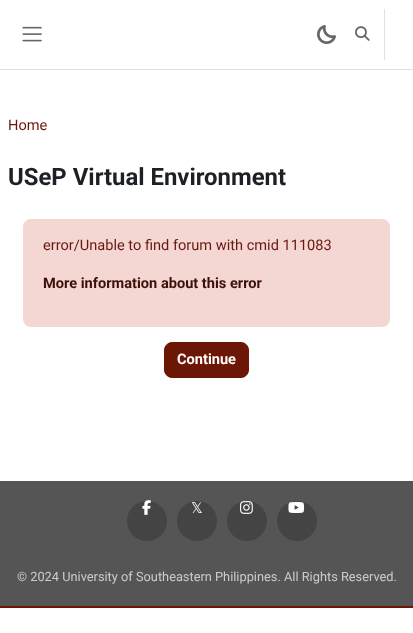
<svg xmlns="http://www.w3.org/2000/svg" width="413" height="633">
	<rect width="100%" height="100%" fill="#FFFFFF" />
	<rect x="0" y="69" width="413" height="1" fill="#DEE2E6" />
	<image x="22" y="26" width="20" height="16" href="assets/img1.png" />
	<image x="317" y="25" width="19" height="19" href="assets/img2.png" />
	<image x="355" y="26" width="15" height="15" href="assets/img3.png" />
	<rect x="384" y="9" width="1" height="51" fill="#DEE2E6" />
	<text x="8" y="130" font-family="Roboto" font-size="14.6" fill="#6C1606">Home</text>
	<text x="8" y="185" font-family="Roboto" font-size="23.9" font-weight="700" fill="#1D2125">USeP Virtual Environment</text>
	<rect x="23" y="219" width="367" height="108" rx="8" fill="#F4D6D2" />
	<text x="43" y="250" font-family="Roboto" font-size="14.6" fill="#691911">error/Unable to find forum with cmid 111083</text>
	<text x="43" y="288" font-family="Roboto" font-size="14.6" font-weight="700" fill="#3D0F0A">More information about this error</text>
	<rect x="164.5" y="342.5" width="84" height="35" rx="7.5" fill="#6C1606" stroke="#6C1606" />
	<text x="177" y="364" font-family="Roboto" font-size="14.6" font-weight="700" fill="#FFFFFF">Continue</text>
	<rect x="0" y="481" width="413" height="125" fill="#555555" />
	<rect x="0" y="606" width="413" height="2" fill="#6C1606" />
	<circle cx="147" cy="521" r="20" fill="#444444" />
	<image x="142" y="500" width="9" height="15" href="assets/img4.png" />
	<circle cx="197" cy="521" r="20" fill="#444444" />
	<text x="191" y="513" font-family="DejaVu Sans" font-size="14.6" fill="#FFFFFF">𝕏</text>
	<circle cx="247" cy="521" r="20" fill="#444444" />
	<image x="240" y="501" width="13" height="13" href="assets/img5.png" />
	<circle cx="297" cy="521" r="20" fill="#444444" />
	<image x="288" y="502" width="17" height="11" href="assets/img6.png" />
	<text x="17" y="581" font-family="Roboto" font-size="12.8" fill="#CCCCCC">© 2024 University of Southeastern Philippines. All Rights Reserved.</text>
</svg>
